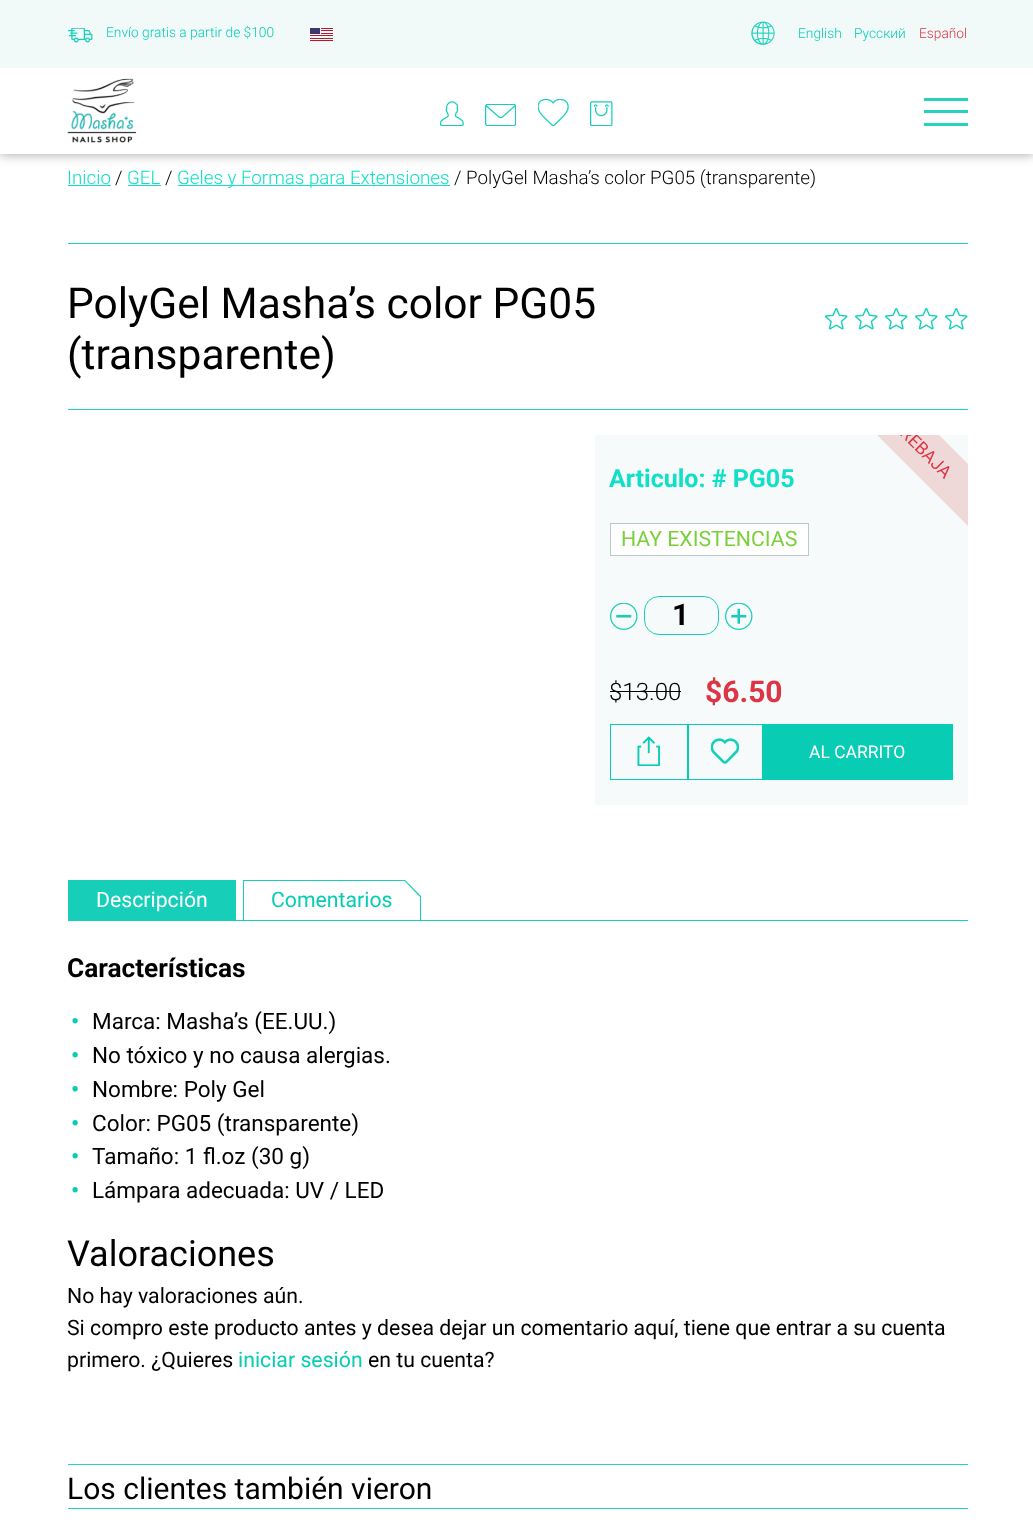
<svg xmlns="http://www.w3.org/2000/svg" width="1033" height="1527">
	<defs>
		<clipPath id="clip1"><path d="M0 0H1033V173H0ZM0 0H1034V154H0Z" clip-rule="evenodd" /></clipPath>
		<clipPath id="clip2"><rect x="874" y="435" width="94" height="94" /></clipPath>
	</defs>
	<rect width="100%" height="100%" fill="#FFFFFF" />
	<g clip-path="url(#clip1)">
		<rect x="0" y="0" width="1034" height="154" fill="#000000" fill-opacity="0.38" filter="blur(6px)" />
	</g>
	<rect x="0" y="0" width="1033" height="68" fill="#F1FAF9" />
	<image x="68" y="28" width="25" height="15" href="assets/img1.png" />
	<text x="106" y="37" font-family="Roboto" font-size="13.75" font-weight="300" fill="#09CCB4">Envío gratis a partir de $100</text>
	<image x="310" y="28" width="23" height="13" href="assets/img2.png" />
	<image x="751" y="21" width="24" height="24" href="assets/img3.png" />
	<g font-family="Roboto" font-size="13.75" font-weight="300" fill="#09CCB4">
		<text x="798" y="38">English</text>
		<text x="854" y="38">Русский</text>
	</g>
	<text x="919" y="38" font-family="Roboto" font-size="13.75" font-weight="300" fill="#DC3545">Español</text>
	<rect x="0" y="153" width="1033" height="1" fill="#FFFFFF" fill-opacity="0.85" />
	<image x="67" y="78" width="69" height="65" href="assets/img4.png" />
	<image x="440" y="101" width="24" height="25" href="assets/img5.png" />
	<image x="485" y="104" width="31" height="22" href="assets/img6.png" />
	<image x="538" y="99" width="31" height="27" href="assets/img7.png" />
	<image x="590" y="101" width="23" height="25" href="assets/img8.png" />
	<rect x="924" y="98" width="44" height="3" fill="#27D2BD" />
	<rect x="924" y="110" width="44" height="3" fill="#27D2BD" />
	<rect x="924" y="123" width="44" height="3" fill="#27D2BD" />
	<text x="67" y="184" font-family="Roboto" font-size="18.75" font-weight="300" fill="#0FE0C7">Inicio</text>
	<rect x="68" y="185" width="43" height="1" fill="#0FE0C7" />
	<text x="115" y="184" font-family="Roboto" font-size="18.75" font-weight="300" fill="#000000">/</text>
	<text x="127" y="184" font-family="Roboto" font-size="18.75" font-weight="300" fill="#0FE0C7">GEL</text>
	<rect x="128" y="185" width="33" height="1" fill="#0FE0C7" />
	<text x="165" y="184" font-family="Roboto" font-size="18.75" font-weight="300" fill="#000000">/</text>
	<rect x="178" y="185" width="272" height="1" fill="#0FE0C7" />
	<text x="177" y="184" font-family="Roboto" font-size="18.75" font-weight="300" fill="#0FE0C7">Geles y Formas para Extensiones</text>
	<text x="454" y="184" font-family="Roboto" font-size="18.75" font-weight="300" fill="#000000">/ PolyGel Masha’s color PG05 (transparente)</text>
	<rect x="68" y="243" width="900" height="1" fill="#27D2BD" />
	<rect x="68" y="409" width="900" height="1" fill="#27D2BD" />
	<g font-family="Roboto" font-size="42.5" fill="#000000">
		<text x="67" y="318">PolyGel Masha’s color PG05</text>
		<text x="67" y="369">(transparente)</text>
	</g>
	<image x="825" y="308" width="23" height="22" href="assets/img9.png" />
	<image x="855" y="308" width="23" height="22" href="assets/img9.png" />
	<image x="885" y="308" width="23" height="22" href="assets/img9.png" />
	<image x="915" y="308" width="23" height="22" href="assets/img9.png" />
	<image x="945" y="308" width="23" height="22" href="assets/img9.png" />
	<rect x="595" y="435" width="373" height="370" fill="#F6FAFA" />
	<text x="609" y="487" font-family="Roboto" font-size="25" font-weight="700" fill="#0FE0C7">Articulo: # PG05</text>
	<g clip-path="url(#clip2)">
		<path d="M901 397L1007 503L976 534L870 428Z" fill="#EFD8D8" />
		<text x="899" y="434" transform="rotate(45 899 434)" font-family="Roboto" font-size="17.5" fill="#DC3545">REBAJA</text>
	</g>
	<rect x="610.5" y="523.5" width="198" height="32" fill="#FFFFFF" stroke="#BBCAC8" />
	<text x="621" y="546" font-family="Roboto" font-size="21.25" fill="#7AD03A">HAY EXISTENCIAS</text>
	<image x="610" y="603" width="28" height="27" href="assets/img10.png" />
	<rect x="644.5" y="596.5" width="74" height="38" rx="14.5" fill="none" stroke="#17CFB9" />
	<text x="672" y="625" font-family="Roboto" font-size="30" font-weight="700" fill="#000000">1</text>
	<image x="725" y="603" width="28" height="27" href="assets/img11.png" />
	<text x="609" y="700" font-family="Roboto" font-size="24" font-weight="300" fill="#000000">$13.00</text>
	<rect x="610" y="691" width="71" height="1" fill="#000000" />
	<text x="705" y="702" font-family="Roboto" font-size="30" font-weight="700" fill="#DC3545">$6.50</text>
	<rect x="610.5" y="724.5" width="77" height="55" fill="none" stroke="#09CCB4" />
	<image x="637" y="736" width="23" height="30" href="assets/img12.png" />
	<rect x="688.5" y="724.5" width="74" height="55" fill="none" stroke="#09CCB4" />
	<image x="711" y="738" width="28" height="26" href="assets/img13.png" />
	<rect x="763" y="724" width="190" height="56" fill="#09CCB4" />
	<text x="809" y="758" font-family="Roboto" font-size="17.5" fill="#FFFFFF">AL CARRITO</text>
	<rect x="68" y="920" width="900" height="1" fill="#17CFB9" />
	<rect x="68" y="880" width="168" height="40" fill="#17CFB9" />
	<text x="96" y="907" font-family="Roboto" font-size="21.25" fill="#FFFFFF">Descripción</text>
	<rect x="243" y="880" width="162" height="1" fill="#17CFB9" />
	<rect x="420" y="896" width="1" height="24" fill="#17CFB9" />
	<rect x="243" y="880" width="1" height="40" fill="#17CFB9" />
	<path d="M405 880L421 896L420 897L404.5 881Z" fill="#17CFB9" />
	<text x="271" y="907" font-family="Roboto" font-size="21.25" fill="#09CCB4">Comentarios</text>
	<text x="67" y="977" font-family="Roboto" font-size="26.25" font-weight="700" fill="#000000">Características</text>
	<text x="71" y="1029" font-family="Roboto" font-size="22.5" font-weight="700" fill="#09CCB4">•</text>
	<text x="92" y="1029" font-family="Roboto" font-size="22.5" fill="#000000">Marca: Masha’s (EE.UU.)</text>
	<text x="71" y="1063" font-family="Roboto" font-size="22.5" font-weight="700" fill="#09CCB4">•</text>
	<text x="92" y="1063" font-family="Roboto" font-size="22.5" fill="#000000">No tóxico y no causa alergias.</text>
	<text x="71" y="1097" font-family="Roboto" font-size="22.5" font-weight="700" fill="#09CCB4">•</text>
	<text x="92" y="1097" font-family="Roboto" font-size="22.5" fill="#000000">Nombre: Poly Gel</text>
	<text x="71" y="1131" font-family="Roboto" font-size="22.5" font-weight="700" fill="#09CCB4">•</text>
	<text x="92" y="1131" font-family="Roboto" font-size="22.5" fill="#000000">Color: PG05 (transparente)</text>
	<text x="71" y="1164" font-family="Roboto" font-size="22.5" font-weight="700" fill="#09CCB4">•</text>
	<text x="92" y="1164" font-family="Roboto" font-size="22.5" fill="#000000">Tamaño: 1 fl.oz (30 g)</text>
	<text x="71" y="1198" font-family="Roboto" font-size="22.5" font-weight="700" fill="#09CCB4">•</text>
	<text x="92" y="1198" font-family="Roboto" font-size="22.5" fill="#000000">Lámpara adecuada: UV / LED</text>
	<text x="67" y="1266" font-family="Roboto" font-size="36" fill="#000000">Valoraciones</text>
	<g font-family="Roboto" font-size="21.25" fill="#000000">
		<text x="67" y="1303">No hay valoraciones aún.</text>
		<text x="67" y="1335">Si compro este producto antes y desea dejar un comentario aquí, tiene que entrar a su cuenta</text>
		<text x="67" y="1367">primero. ¿Quieres</text>
	</g>
	<text x="238" y="1367" font-family="Roboto" font-size="21.25" fill="#09CCB4">iniciar sesión</text>
	<text x="368" y="1367" font-family="Roboto" font-size="21.25" fill="#000000">en tu cuenta?</text>
	<rect x="68" y="1464" width="900" height="1" fill="#27D2BD" />
	<rect x="68" y="1508" width="900" height="1" fill="#27D2BD" />
	<text x="67" y="1499" font-family="Roboto" font-size="30" fill="#000000">Los clientes también vieron</text>
</svg>
